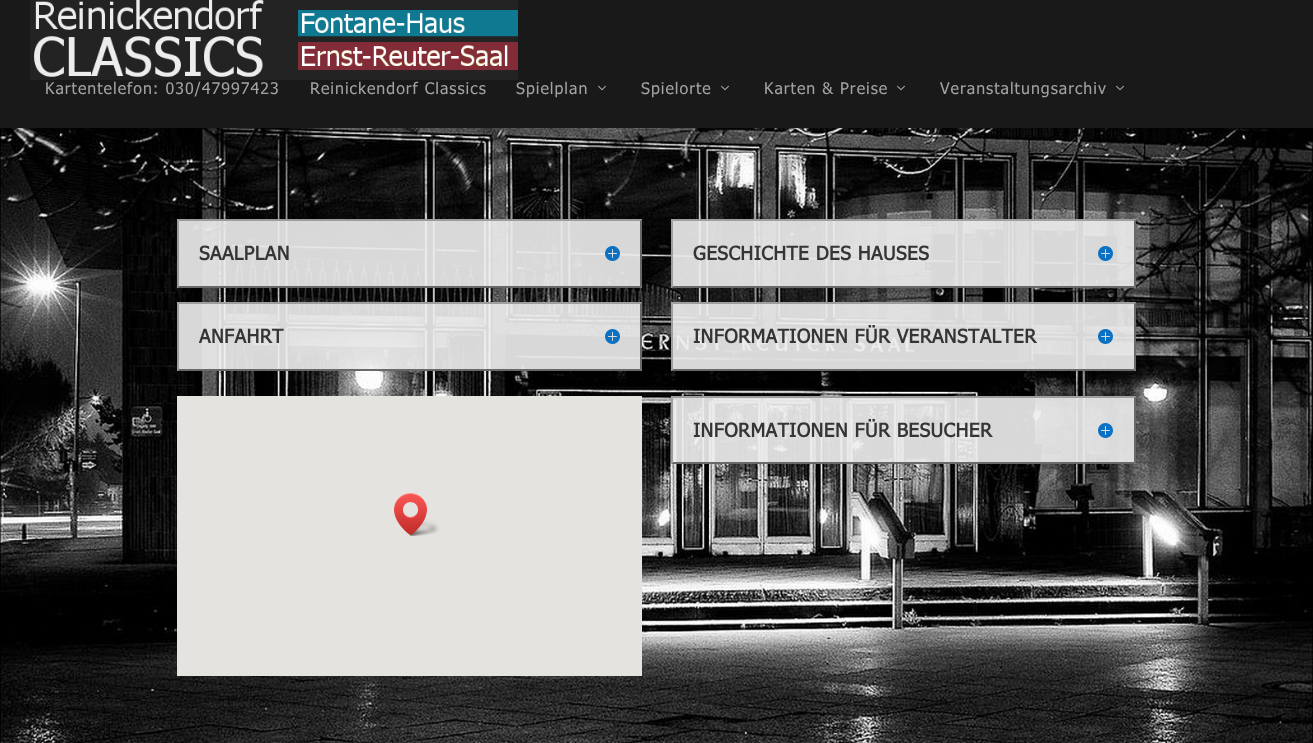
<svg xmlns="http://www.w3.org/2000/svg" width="1313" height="743">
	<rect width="100%" height="100%" fill="#FFFFFF" />
	<rect x="0" y="0" width="1313" height="128" fill="#191919" />
	<image x="30" y="0" width="488" height="80" href="assets/img1.png" />
	<g font-family="Tahoma" font-size="16" letter-spacing="1" fill="#A3A3A3">
		<text x="45" y="94">Kartentelefon: 030/47997423</text>
		<text x="310" y="94">Reinickendorf Classics</text>
		<text x="516" y="94">Spielplan</text>
	</g>
	<image x="598" y="85" width="8" height="6" href="assets/img2.png" />
	<text x="641" y="94" font-family="Tahoma" font-size="16" letter-spacing="1" fill="#A3A3A3">Spielorte</text>
	<image x="721" y="85" width="8" height="6" href="assets/img2.png" />
	<text x="764" y="94" font-family="Tahoma" font-size="16" letter-spacing="1" fill="#A3A3A3">Karten &amp; Preise</text>
	<image x="897" y="85" width="8" height="6" href="assets/img2.png" />
	<text x="940" y="94" font-family="Tahoma" font-size="16" letter-spacing="1" fill="#A3A3A3">Veranstaltungsarchiv</text>
	<image x="1116" y="85" width="8" height="6" href="assets/img2.png" />
	<image x="0" y="128" width="1313" height="615" href="assets/img3.png" />
	<rect x="177" y="219" width="465" height="69" fill="#EDEDED" fill-opacity="0.91" />
	<path d="M177 219H642L640 221H179Z" fill="#9B9B9B" />
	<path d="M642 219V288L640 286V221Z" fill="#676767" />
	<path d="M642 288H177L179 286H640Z" fill="#676767" />
	<path d="M177 288V219L179 221V286Z" fill="#9B9B9B" />
	<text x="199" y="260" font-family="Tahoma" font-size="19" font-weight="700" letter-spacing="0.5" fill="#353535">SAALPLAN</text>
	<image x="605" y="246" width="15" height="15" href="assets/img4.png" />
	<rect x="177" y="302" width="465" height="69" fill="#EDEDED" fill-opacity="0.91" />
	<path d="M177 302H642L640 304H179Z" fill="#9E9E9E" />
	<path d="M642 302V371L640 369V304Z" fill="#696969" />
	<path d="M642 371H177L179 369H640Z" fill="#696969" />
	<path d="M177 371V302L179 304V369Z" fill="#9E9E9E" />
	<text x="199" y="343" font-family="Tahoma" font-size="19" font-weight="700" letter-spacing="0.5" fill="#353535">ANFAHRT</text>
	<image x="605" y="329" width="15" height="15" href="assets/img5.png" />
	<rect x="671" y="219" width="465" height="69" fill="#EDEDED" fill-opacity="0.91" />
	<path d="M671 219H1136L1134 221H673Z" fill="#9E9E9E" />
	<path d="M1136 219V288L1134 286V221Z" fill="#696969" />
	<path d="M1136 288H671L673 286H1134Z" fill="#696969" />
	<path d="M671 288V219L673 221V286Z" fill="#9E9E9E" />
	<text x="693" y="260" font-family="Tahoma" font-size="19" font-weight="700" letter-spacing="0.5" fill="#353535">GESCHICHTE DES HAUSES</text>
	<image x="1098" y="246" width="15" height="15" href="assets/img6.png" />
	<rect x="671" y="302" width="465" height="69" fill="#EDEDED" fill-opacity="0.91" />
	<path d="M671 302H1136L1134 304H673Z" fill="#9E9E9E" />
	<path d="M1136 302V371L1134 369V304Z" fill="#696969" />
	<path d="M1136 371H671L673 369H1134Z" fill="#696969" />
	<path d="M671 371V302L673 304V369Z" fill="#9E9E9E" />
	<text x="693" y="343" font-family="Tahoma" font-size="19" font-weight="700" letter-spacing="0.5" fill="#353535">INFORMATIONEN FÜR VERANSTALTER</text>
	<image x="1098" y="329" width="15" height="15" href="assets/img7.png" />
	<rect x="177" y="396" width="465" height="280" fill="#E5E3DF" />
	<image x="394" y="493" width="45" height="43" href="assets/img8.png" />
	<rect x="671" y="396" width="465" height="68" fill="#EDEDED" fill-opacity="0.91" />
	<path d="M671 396H1136L1134 398H673Z" fill="#9E9E9E" />
	<path d="M1136 396V464L1134 462V398Z" fill="#696969" />
	<path d="M1136 464H671L673 462H1134Z" fill="#696969" />
	<path d="M671 464V396L673 398V462Z" fill="#9E9E9E" />
	<text x="693" y="437" font-family="Tahoma" font-size="19" font-weight="700" letter-spacing="0.5" fill="#353535">INFORMATIONEN FÜR BESUCHER</text>
	<image x="1098" y="423" width="15" height="15" href="assets/img9.png" />
</svg>
